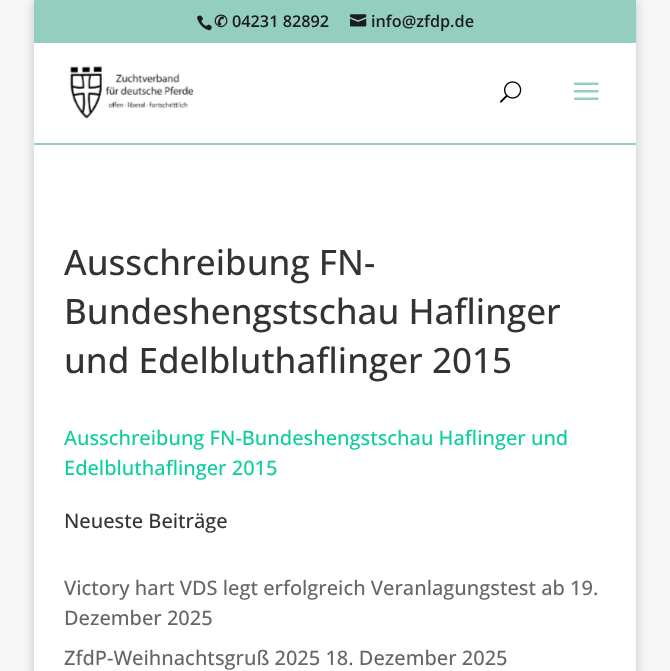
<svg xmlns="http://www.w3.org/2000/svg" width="670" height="671">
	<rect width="100%" height="100%" fill="#F7F7F7" />
	<rect x="34" y="0" width="602" height="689" fill="#000000" fill-opacity="0.2" filter="blur(6px)" />
	<rect x="34" y="0" width="602" height="43" fill="#94CEBF" />
	<image x="196" y="15" width="16" height="16" href="assets/img1.png" />
	<text x="214" y="27" font-family="DejaVu Sans" font-size="16.25" font-weight="700" fill="#1C1C1C">✆</text>
	<text x="232" y="27" font-family="Open Sans" font-size="16.25" font-weight="600" fill="#1C1C1C">04231 82892</text>
	<image x="350" y="14" width="17" height="13" href="assets/img2.png" />
	<text x="371" y="27" font-family="Open Sans" font-size="16.25" font-weight="600" fill="#1C1C1C">info@zfdp.de</text>
	<rect x="34" y="143" width="602" height="2" fill="#94CEBF" />
	<rect x="34" y="43" width="602" height="100" fill="#FFFFFF" />
	<image x="69" y="65" width="125" height="54" href="assets/img3.png" />
	<image x="500" y="81" width="22" height="22" href="assets/img4.png" />
	<image x="573" y="82" width="26" height="18" href="assets/img5.png" />
	<rect x="34" y="145" width="602" height="526" fill="#FFFFFF" />
	<g font-family="Open Sans" font-size="35" font-weight="500" fill="#333333">
		<text x="64" y="275">Ausschreibung FN-</text>
		<text x="64" y="324">Bundeshengstschau Haflinger</text>
		<text x="64" y="373">und Edelbluthaflinger 2015</text>
	</g>
	<g font-family="Open Sans" font-size="20" font-weight="500" fill="#0CCE9E">
		<text x="64" y="445">Ausschreibung FN-Bundeshengstschau Haflinger und</text>
		<text x="64" y="475">Edelbluthaflinger 2015</text>
	</g>
	<text x="64" y="528" font-family="Open Sans" font-size="20" font-weight="500" fill="#333333">Neueste Beiträge</text>
	<g font-family="Open Sans" font-size="20" font-weight="500" fill="#666666">
		<text x="64" y="595">Victory hart VDS legt erfolgreich Veranlagungstest ab 19.</text>
		<text x="64" y="625">Dezember 2025</text>
		<text x="64" y="665">ZfdP-Weihnachtsgruß 2025 18. Dezember 2025</text>
	</g>
</svg>
